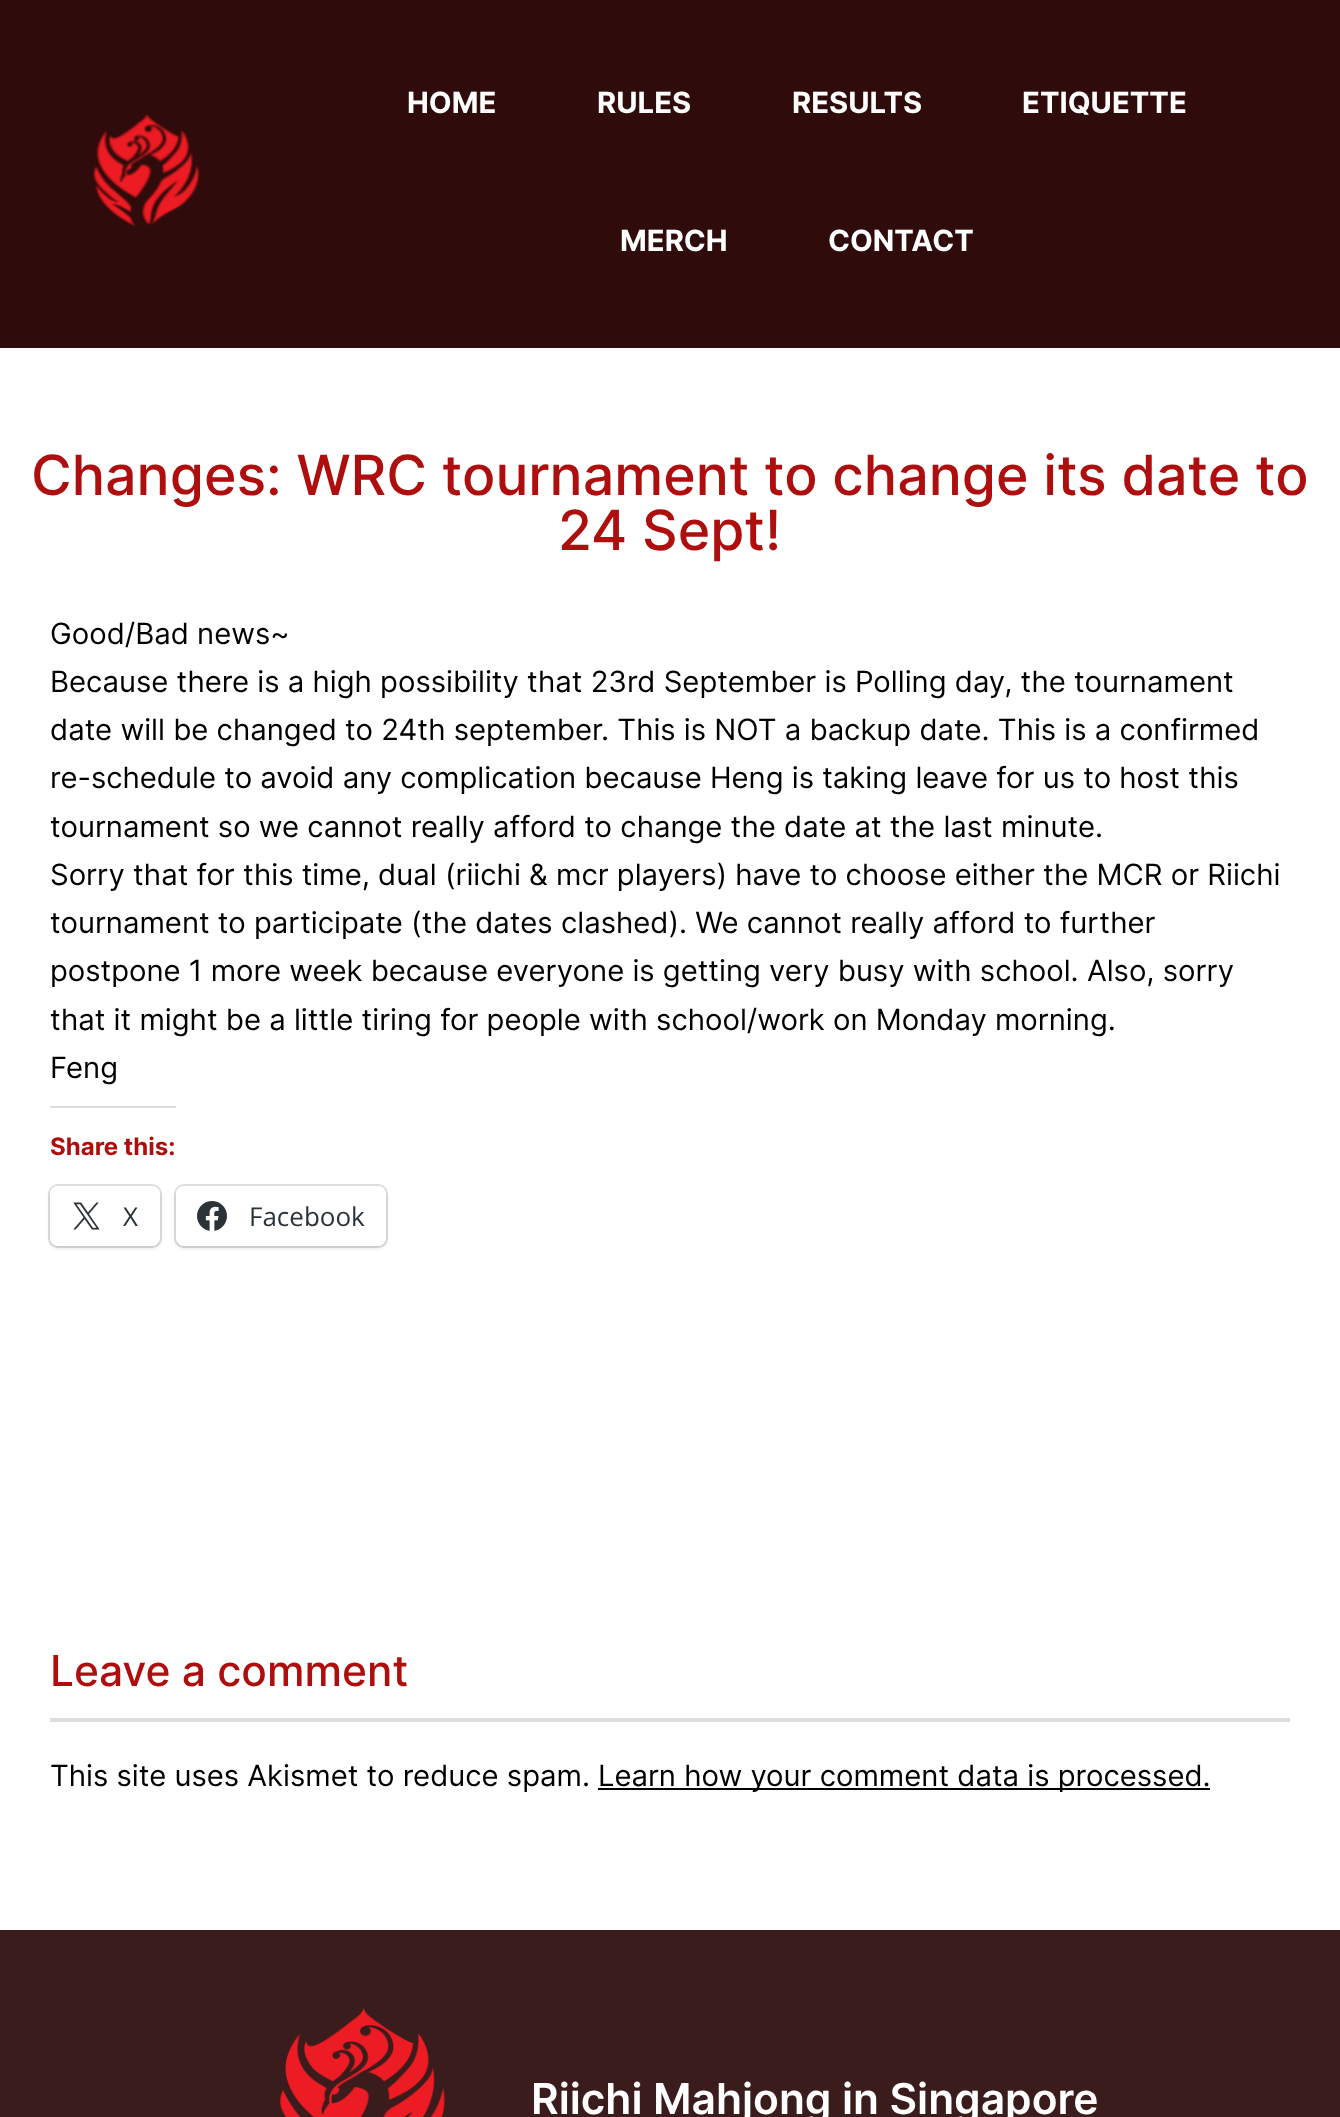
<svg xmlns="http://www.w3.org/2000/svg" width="1340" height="2117">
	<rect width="100%" height="100%" fill="#FFFFFF" />
	<rect x="0" y="0" width="1340" height="348" fill="#300B0B" />
	<image x="93" y="114" width="108" height="113" href="assets/img1.png" />
	<g font-family="Inter" font-size="29.25" font-weight="700" fill="#FFFFFF">
		<text x="407" y="113">HOME</text>
		<text x="597" y="113">RULES</text>
		<text x="792" y="113">RESULTS</text>
		<text x="1022" y="113">ETIQUETTE</text>
		<text x="620" y="251">MERCH</text>
		<text x="828" y="251">CONTACT</text>
	</g>
	<g font-family="Inter" font-size="55.4" font-weight="500" fill="#AF0E0E">
		<text x="31" y="495">Changes: WRC tournament to change its date to</text>
		<text x="558" y="550">24 Sept!</text>
	</g>
	<g font-family="Inter" font-size="29.25" fill="#000000">
		<text x="50" y="644">Good/Bad news~</text>
		<text x="50" y="692">Because there is a high possibility that 23rd September is Polling day, the tournament</text>
		<text x="50" y="740">date will be changed to 24th september. This is NOT a backup date. This is a confirmed</text>
		<text x="50" y="788">re-schedule to avoid any complication because Heng is taking leave for us to host this</text>
		<text x="50" y="837">tournament so we cannot really afford to change the date at the last minute.</text>
		<text x="50" y="885">Sorry that for this time, dual (riichi &amp; mcr players) have to choose either the MCR or Riichi</text>
		<text x="50" y="933">tournament to participate (the dates clashed). We cannot really afford to further</text>
		<text x="50" y="981">postpone 1 more week because everyone is getting very busy with school. Also, sorry</text>
		<text x="50" y="1030">that it might be a little tiring for people with school/work on Monday morning.</text>
		<text x="50" y="1078">Feng</text>
	</g>
	<rect x="50" y="1106" width="126" height="2" fill="#DCDCDE" />
	<text x="50" y="1155" font-family="Inter" font-size="24" font-weight="700" fill="#AF0E0E">Share this:</text>
	<rect x="49" y="1185" width="112" height="62" rx="9" fill="none" stroke="#E0E0E0" stroke-width="2" />
	<rect x="50" y="1188" width="110" height="60" rx="8" fill="#000000" fill-opacity="0.12" filter="blur(2px)" />
	<rect x="50" y="1186" width="110" height="60" rx="8" fill="#FFFFFF" />
	<image x="73" y="1202" width="27" height="28" href="assets/img2.png" />
	<text x="123" y="1226" font-family="Open Sans" font-size="26" fill="#2C3338">X</text>
	<rect x="175" y="1185" width="212" height="62" rx="9" fill="none" stroke="#E0E0E0" stroke-width="2" />
	<rect x="176" y="1188" width="210" height="60" rx="8" fill="#000000" fill-opacity="0.12" filter="blur(2px)" />
	<rect x="176" y="1186" width="210" height="60" rx="8" fill="#FFFFFF" />
	<image x="197" y="1201" width="30" height="30" href="assets/img3.png" />
	<text x="249" y="1226" font-family="Open Sans" font-size="26" fill="#2C3338">Facebook</text>
	<text x="50" y="1686" font-family="Inter" font-size="42.5" font-weight="500" fill="#AF0E0E">Leave a comment</text>
	<rect x="50" y="1718" width="1240" height="4" fill="#DCDCDE" />
	<text x="50" y="1786" font-family="Inter" font-size="29.25" fill="#000000">This site uses Akismet to reduce spam.</text>
	<rect x="598" y="1788" width="612" height="2" fill="#000000" />
	<text x="598" y="1786" font-family="Inter" font-size="29.25" fill="#000000">Learn how your comment data is processed.</text>
	<rect x="0" y="1930" width="1340" height="187" fill="#3B1C1C" />
	<image x="279" y="2007" width="166" height="110" href="assets/img4.png" />
	<text x="531" y="2114" font-family="Inter" font-size="42.5" font-weight="600" fill="#FFFFFF">Riichi Mahjong in Singapore</text>
</svg>
